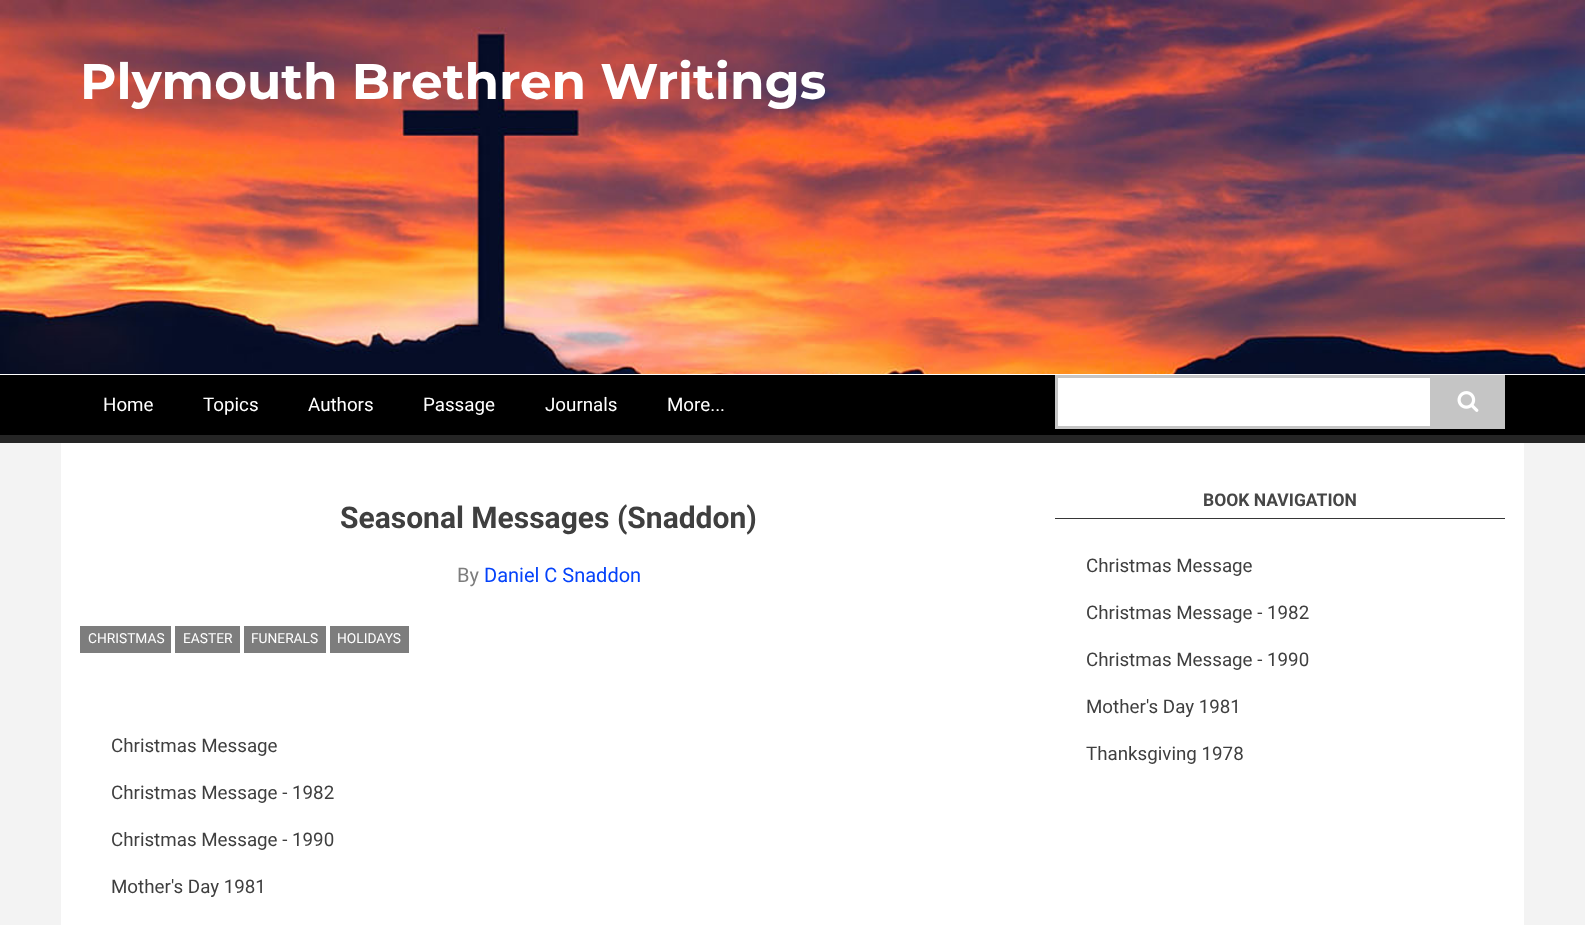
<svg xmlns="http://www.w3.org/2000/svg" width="1585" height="925">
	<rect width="100%" height="100%" fill="#F3F3F3" />
	<image x="0" y="0" width="1585" height="374" href="assets/img1.png" />
	<rect x="0" y="374" width="1585" height="1" fill="#FFFFFF" />
	<text x="80" y="99" font-family="Montserrat" font-size="50" font-weight="700" fill="#FFFFFF">Plymouth Brethren Writings</text>
	<rect x="0" y="375" width="1585" height="60" fill="#000000" />
	<rect x="0" y="435" width="1585" height="8" fill="#252525" />
	<g font-family="Roboto" font-size="18.75" fill="#FFFFFF">
		<text x="103" y="411">Home</text>
		<text x="203" y="411">Topics</text>
		<text x="308" y="411">Authors</text>
		<text x="423" y="411">Passage</text>
		<text x="545" y="411">Journals</text>
		<text x="667" y="411">More...</text>
	</g>
	<rect x="1058" y="378" width="372" height="48" fill="#FFFFFF" />
	<rect x="1056.5" y="376.5" width="447" height="51" fill="none" stroke="#C5C5C5" stroke-width="3" />
	<rect x="1430" y="378" width="72" height="48" fill="#C5C5C5" />
	<image x="1457" y="391" width="22" height="21" href="assets/img2.png" />
	<rect x="61" y="443" width="1463" height="482" fill="#FFFFFF" />
	<text x="340" y="528" font-family="Roboto" font-size="30" font-weight="700" fill="#3F3F3F">Seasonal Messages (Snaddon)</text>
	<text x="457" y="582" font-family="Roboto" font-size="20" fill="#7D7D7D">By</text>
	<text x="484" y="582" font-family="Roboto" font-size="20" fill="#0442FA">Daniel C Snaddon</text>
	<rect x="80" y="626" width="91" height="27" fill="#7D7D7D" />
	<text x="88" y="643" font-family="Roboto" font-size="13.75" fill="#FFFFFF">CHRISTMAS</text>
	<rect x="175" y="626" width="65" height="27" fill="#7D7D7D" />
	<text x="183" y="643" font-family="Roboto" font-size="13.75" fill="#FFFFFF">EASTER</text>
	<rect x="244" y="626" width="82" height="27" fill="#7D7D7D" />
	<text x="251" y="643" font-family="Roboto" font-size="13.75" fill="#FFFFFF">FUNERALS</text>
	<rect x="330" y="626" width="79" height="27" fill="#7D7D7D" />
	<text x="337" y="643" font-family="Roboto" font-size="13.75" fill="#FFFFFF">HOLIDAYS</text>
	<g font-family="Roboto" font-size="18.75" fill="#3F3F3F">
		<text x="111" y="752">Christmas Message</text>
		<text x="111" y="799">Christmas Message - 1982</text>
		<text x="111" y="846">Christmas Message - 1990</text>
		<text x="111" y="893">Mother's Day 1981</text>
	</g>
	<rect x="1055" y="518" width="450" height="1" fill="#363636" />
	<text x="1203" y="506" font-family="Roboto" font-size="17.5" font-weight="700" fill="#464646">BOOK NAVIGATION</text>
	<g font-family="Roboto" font-size="18.75" fill="#3F3F3F">
		<text x="1086" y="572">Christmas Message</text>
		<text x="1086" y="619">Christmas Message - 1982</text>
		<text x="1086" y="666">Christmas Message - 1990</text>
		<text x="1086" y="713">Mother's Day 1981</text>
		<text x="1086" y="760">Thanksgiving 1978</text>
	</g>
</svg>
